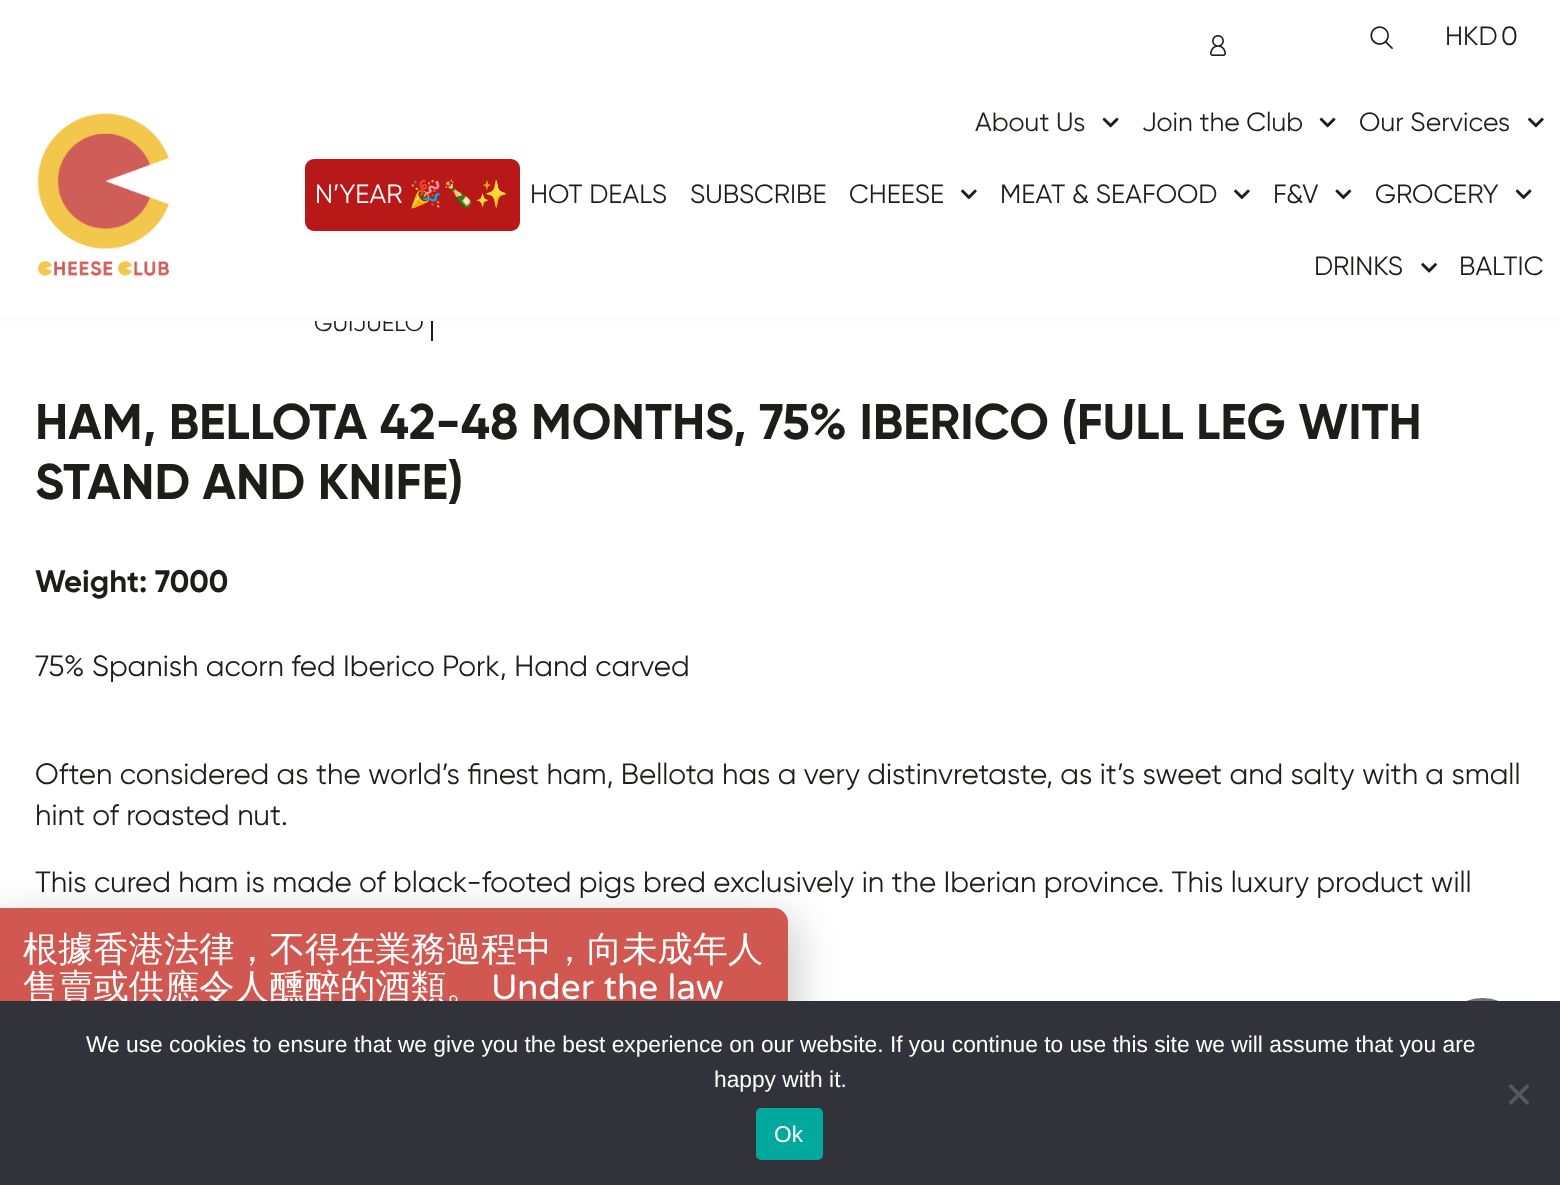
<svg xmlns="http://www.w3.org/2000/svg" width="1560" height="1185">
	<rect width="100%" height="100%" fill="#FFFFFF" />
	<image x="1210" y="35" width="16" height="21" href="assets/img1.png" />
	<image x="1370" y="26" width="23" height="23" href="assets/img2.png" />
	<g font-family="Gilroy" font-size="26.5" fill="#1D1D1B">
		<text x="1445" y="45">HKD</text>
		<text x="1501" y="45">0</text>
	</g>
	<text x="314" y="331" font-family="Gilroy" font-size="23.5" fill="#1D1D1B">GUIJUELO</text>
	<rect x="317" y="314" width="104" height="3" fill="#FFFFFF" />
	<rect x="0" y="317" width="1560" height="4" fill="#FBFBFB" />
	<image x="37" y="113" width="132" height="163" href="assets/img3.png" />
	<text x="975" y="131" font-family="Gilroy" font-size="26.5" fill="#1D1D1B">About Us</text>
	<image x="1102" y="117" width="17" height="11" href="assets/img4.png" />
	<text x="1142" y="131" font-family="Gilroy" font-size="26.5" fill="#1D1D1B">Join the Club</text>
	<image x="1319" y="117" width="17" height="11" href="assets/img4.png" />
	<text x="1359" y="131" font-family="Gilroy" font-size="26.5" fill="#1D1D1B">Our Services</text>
	<image x="1528" y="117" width="16" height="11" href="assets/img5.png" />
	<rect x="305" y="159" width="215" height="72" rx="9" fill="#B81818" />
	<text x="315" y="203" font-family="Gilroy" font-size="26.5" fill="#FFFFFF">N’YEAR</text>
	<text x="409" y="203" font-family="Noto Color Emoji" font-size="26.5" fill="#FFFFFF">🎉🍾✨</text>
	<g font-family="Gilroy" font-size="26.5" fill="#1D1D1B">
		<text x="530" y="203">HOT DEALS</text>
		<text x="690" y="203">SUBSCRIBE</text>
		<text x="849" y="203">CHEESE</text>
	</g>
	<image x="961" y="189" width="16" height="11" href="assets/img6.png" />
	<text x="1000" y="203" font-family="Gilroy" font-size="26.5" fill="#1D1D1B">MEAT &amp; SEAFOOD</text>
	<image x="1234" y="189" width="16" height="11" href="assets/img6.png" />
	<text x="1273" y="203" font-family="Gilroy" font-size="26.5" fill="#1D1D1B">F&amp;V</text>
	<image x="1335" y="189" width="17" height="11" href="assets/img7.png" />
	<text x="1375" y="203" font-family="Gilroy" font-size="26.5" fill="#1D1D1B">GROCERY</text>
	<image x="1515" y="189" width="17" height="11" href="assets/img8.png" />
	<text x="1314" y="275" font-family="Gilroy" font-size="26.5" fill="#1D1D1B">DRINKS</text>
	<image x="1421" y="263" width="16" height="10" href="assets/img9.png" />
	<text x="1459" y="275" font-family="Gilroy" font-size="26.5" fill="#1D1D1B">BALTIC</text>
	<rect x="431" y="321" width="2" height="20" fill="#1D1D1B" />
	<g font-family="Gilroy" font-size="50" font-weight="700" fill="#1D1D1B">
		<text x="35" y="439">HAM, BELLOTA 42-48 MONTHS, 75% IBERICO (FULL LEG WITH</text>
		<text x="35" y="499">STAND AND KNIFE)</text>
	</g>
	<text x="35" y="592" font-family="Gilroy" font-size="31" font-weight="700" fill="#1D1D1B">Weight: 7000</text>
	<g font-family="Gilroy" font-size="29.4" fill="#1D1D1B">
		<text x="35" y="676">75% Spanish acorn fed Iberico Pork, Hand carved</text>
		<text x="35" y="784">Often considered as the world’s finest ham, Bellota has a very distinvretaste, as it’s sweet and salty with a small</text>
		<text x="35" y="825">hint of roasted nut.</text>
		<text x="35" y="892">This cured ham is made of black-footed pigs bred exclusively in the Iberian province. This luxury product will</text>
	</g>
	<rect x="-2" y="917" width="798" height="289" rx="19" fill="#000000" fill-opacity="0.2" filter="blur(20px)" />
	<path d="M1 909H774C781 909 787 915 787 922V1173C787 1180 781 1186 774 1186H1Z" fill="#D15851" stroke="#D15851" stroke-width="2" />
	<g font-family="WenQuanYi Zen Hei" font-size="35.25" font-weight="500" fill="#FFFFFF">
		<text x="23" y="961">根據香港法律，不得在業務過程中，向未成年人</text>
		<text x="23" y="999">售賣或供應令人醺醉的酒類。</text>
	</g>
	<text x="491" y="999" font-family="Varela Round" font-size="35.25" fill="#FFFFFF">Under the law</text>
	<circle cx="1482.5" cy="1041.5" r="41" fill="none" stroke="#69727D" stroke-width="5" />
	<rect x="0" y="1001" width="1560" height="184" fill="#32323A" />
	<g font-family="Liberation Sans" font-size="22.75" fill="#FFFFFF">
		<text x="86" y="1052">We use cookies to ensure that we give you the best experience on our website. If you continue to use this site we will assume that you are</text>
		<text x="714" y="1087">happy with it.</text>
	</g>
	<path d="M1527 1084L1529.5 1086.5L1511 1105L1508.5 1102.5Z" fill="#59595D" />
	<path d="M1508.5 1086.5L1511 1084L1529.5 1102.5L1527 1105Z" fill="#59595D" />
	<rect x="756" y="1108" width="67" height="52" rx="5" fill="#00A99D" />
	<text x="774" y="1142" font-family="Liberation Sans" font-size="22.75" fill="#FFFFFF">Ok</text>
</svg>
